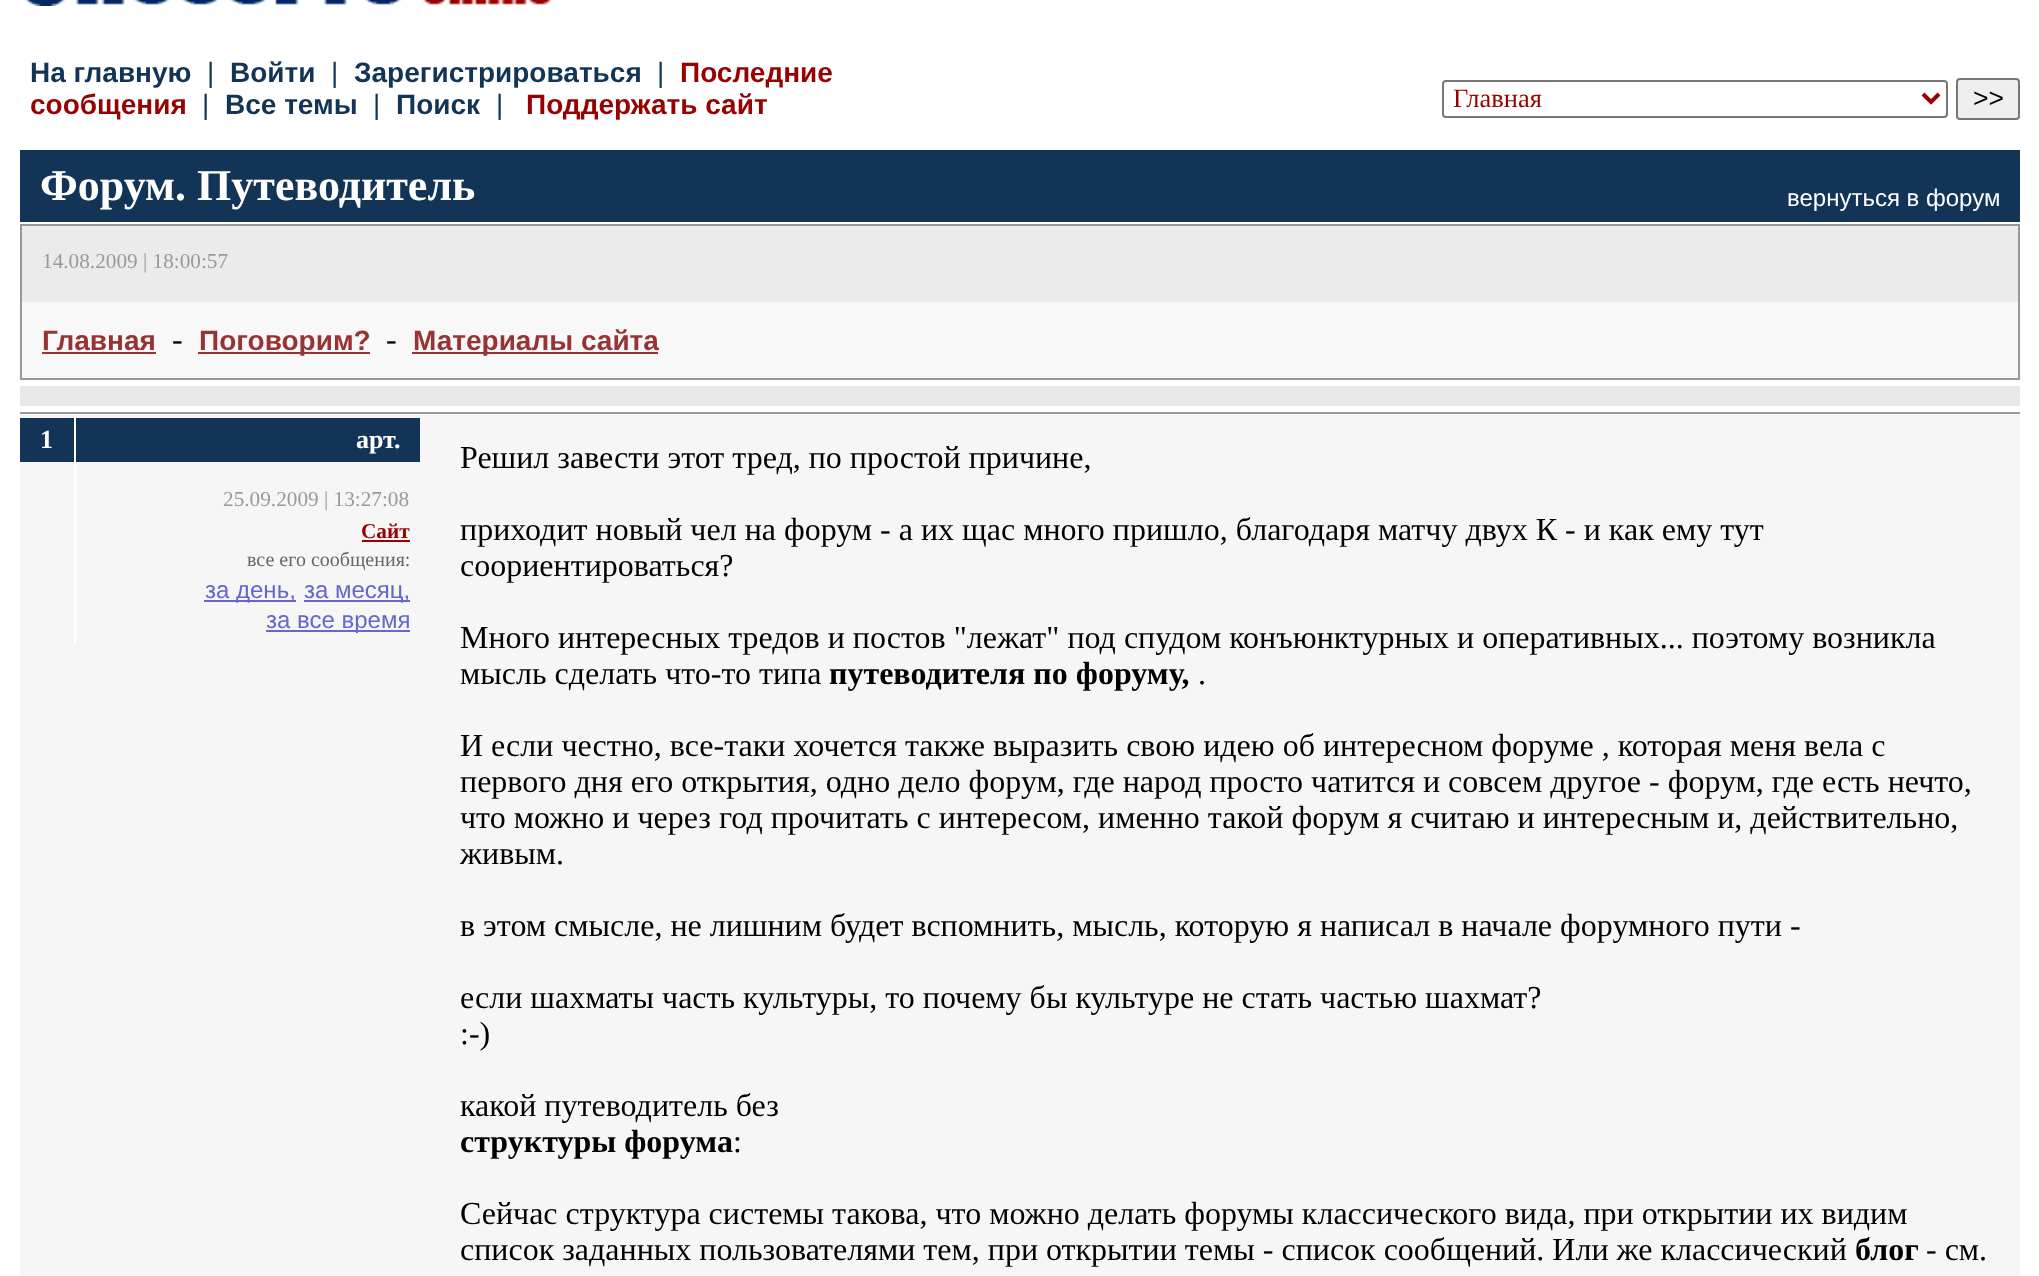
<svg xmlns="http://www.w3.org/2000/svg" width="2039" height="1276">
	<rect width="100%" height="100%" fill="#FFFFFF" />
	<image x="25" y="0" width="527" height="6" href="assets/img1.png" />
	<text x="30" y="82" font-family="Liberation Sans" font-size="28" font-weight="700" fill="#123456">На главную</text>
	<text x="207" y="82" font-family="Liberation Sans" font-size="28" fill="#123456">|</text>
	<text x="230" y="82" font-family="Liberation Sans" font-size="28" font-weight="700" fill="#123456">Войти</text>
	<text x="331" y="82" font-family="Liberation Sans" font-size="28" fill="#123456">|</text>
	<text x="354" y="82" font-family="Liberation Sans" font-size="28" font-weight="700" fill="#123456">Зарегистрироваться</text>
	<text x="657" y="82" font-family="Liberation Sans" font-size="28" fill="#123456">|</text>
	<g font-family="Liberation Sans" font-size="28" font-weight="700" fill="#990000">
		<text x="680" y="82">Последние</text>
		<text x="30" y="114">сообщения</text>
	</g>
	<text x="202" y="114" font-family="Liberation Sans" font-size="28" fill="#123456">|</text>
	<text x="225" y="114" font-family="Liberation Sans" font-size="28" font-weight="700" fill="#123456">Все темы</text>
	<text x="373" y="114" font-family="Liberation Sans" font-size="28" fill="#123456">|</text>
	<text x="396" y="114" font-family="Liberation Sans" font-size="28" font-weight="700" fill="#123456">Поиск</text>
	<text x="496" y="114" font-family="Liberation Sans" font-size="28" fill="#123456">|</text>
	<text x="526" y="114" font-family="Liberation Sans" font-size="28" font-weight="700" fill="#990000">Поддержать сайт</text>
	<rect x="1443" y="81" width="504" height="36" rx="3" fill="none" stroke="#767676" stroke-width="2" />
	<path d="M1923 94L1931 102L1939 94" fill="none" stroke="#990000" stroke-width="4" />
	<text x="1453" y="107" font-family="Liberation Serif" font-size="26.5" fill="#990000">Главная</text>
	<rect x="1957" y="79" width="62" height="40" rx="3" fill="#EFEFEF" stroke="#767676" stroke-width="2" />
	<text x="1973" y="107" font-family="Liberation Sans" font-size="26.5" fill="#000000">&gt;&gt;</text>
	<rect x="20" y="150" width="2000" height="72" fill="#123456" />
	<text x="40" y="200" font-family="Liberation Serif" font-size="44" font-weight="700" fill="#FFFFFF">Форум. Путеводитель</text>
	<text x="1787" y="206" font-family="Liberation Sans" font-size="24" fill="#FFFFFF">вернуться в форум</text>
	<rect x="21" y="225" width="1998" height="154" fill="none" stroke="#999999" stroke-width="2" />
	<rect x="22" y="226" width="1996" height="76" fill="#EBEBEB" />
	<text x="42" y="268" font-family="Liberation Serif" font-size="21.25" fill="#999999">14.08.2009 | 18:00:57</text>
	<rect x="22" y="302" width="1996" height="76" fill="#F8F8F8" />
	<text x="42" y="350" font-family="Liberation Sans" font-size="28" font-weight="700" fill="#993333">Главная</text>
	<rect x="42" y="352" width="114" height="2" fill="#993333" />
	<text x="172" y="350" font-family="Liberation Serif" font-size="32" fill="#000000">-</text>
	<rect x="198" y="352" width="172" height="2" fill="#993333" />
	<text x="199" y="350" font-family="Liberation Sans" font-size="28" font-weight="700" fill="#993333">Поговорим?</text>
	<text x="386" y="350" font-family="Liberation Serif" font-size="32" fill="#000000">-</text>
	<rect x="412" y="352" width="246" height="2" fill="#993333" />
	<text x="413" y="350" font-family="Liberation Sans" font-size="28" font-weight="700" fill="#993333">Материалы сайта</text>
	<rect x="20" y="386" width="2000" height="20" fill="#E8E8E8" />
	<rect x="20" y="414" width="2000" height="862" fill="#F6F6F6" />
	<rect x="20" y="412" width="2000" height="2" fill="#999999" />
	<rect x="74" y="414" width="2" height="230" fill="#FFFFFF" />
	<rect x="20" y="418" width="54" height="44" fill="#123456" />
	<text x="40" y="448" font-family="Liberation Serif" font-size="26" font-weight="700" fill="#FFFFFF">1</text>
	<rect x="76" y="418" width="344" height="44" fill="#123456" />
	<text x="356" y="448" font-family="Liberation Serif" font-size="26" font-weight="700" fill="#FFFFFF">арт.</text>
	<text x="223" y="506" font-family="Liberation Serif" font-size="21.25" fill="#999999">25.09.2009 | 13:27:08</text>
	<text x="361" y="538" font-family="Liberation Serif" font-size="21.25" font-weight="700" fill="#990000">Сайт</text>
	<rect x="362" y="540" width="48" height="2" fill="#990000" />
	<text x="247" y="566" font-family="Liberation Serif" font-size="20" fill="#666666">все его сообщения:</text>
	<rect x="204" y="600" width="92" height="2" fill="#6666CC" />
	<text x="205" y="598" font-family="Liberation Sans" font-size="24" fill="#6666CC">за день,</text>
	<rect x="304" y="600" width="106" height="2" fill="#6666CC" />
	<text x="304" y="598" font-family="Liberation Sans" font-size="24" fill="#6666CC">за месяц,</text>
	<rect x="266" y="630" width="144" height="2" fill="#6666CC" />
	<text x="266" y="628" font-family="Liberation Sans" font-size="24" fill="#6666CC">за все время</text>
	<g font-family="Liberation Serif" font-size="32" fill="#000000">
		<text x="460" y="468">Решил завести этот тред, по простой причине,</text>
		<text x="460" y="540">приходит новый чел на форум - а их щас много пришло, благодаря матчу двух К - и как ему тут</text>
		<text x="460" y="576">соориентироваться?</text>
		<text x="460" y="648">Много интересных тредов и постов "лежат" под спудом конъюнктурных и оперативных... поэтому возникла</text>
		<text x="460" y="684">мысль сделать что-то типа</text>
	</g>
	<text x="829" y="684" font-family="Liberation Serif" font-size="32" font-weight="700" fill="#000000">путеводителя по форуму,</text>
	<g font-family="Liberation Serif" font-size="32" fill="#000000">
		<text x="1198" y="684">.</text>
		<text x="460" y="756">И если честно, все-таки хочется также выразить свою идею об интересном форуме , которая меня вела с</text>
		<text x="460" y="792">первого дня его открытия, одно дело форум, где народ просто чатится и совсем другое - форум, где есть нечто,</text>
		<text x="460" y="828">что можно и через год прочитать с интересом, именно такой форум я считаю и интересным и, действительно,</text>
		<text x="460" y="864">живым.</text>
		<text x="460" y="936">в этом смысле, не лишним будет вспомнить, мысль, которую я написал в начале форумного пути -</text>
		<text x="460" y="1008">если шахматы часть культуры, то почему бы культуре не стать частью шахмат?</text>
		<text x="460" y="1044">:-)</text>
		<text x="460" y="1116">какой путеводитель без</text>
	</g>
	<text x="460" y="1152" font-family="Liberation Serif" font-size="32" font-weight="700" fill="#000000">структуры форума</text>
	<g font-family="Liberation Serif" font-size="32" fill="#000000">
		<text x="733" y="1152">:</text>
		<text x="460" y="1224">Сейчас структура системы такова, что можно делать форумы классического вида, при открытии их видим</text>
		<text x="460" y="1260">список заданных пользователями тем, при открытии темы - список сообщений. Или же классический</text>
	</g>
	<text x="1855" y="1260" font-family="Liberation Serif" font-size="32" font-weight="700" fill="#000000">блог</text>
	<text x="1926" y="1260" font-family="Liberation Serif" font-size="32" fill="#000000">- см.</text>
</svg>
